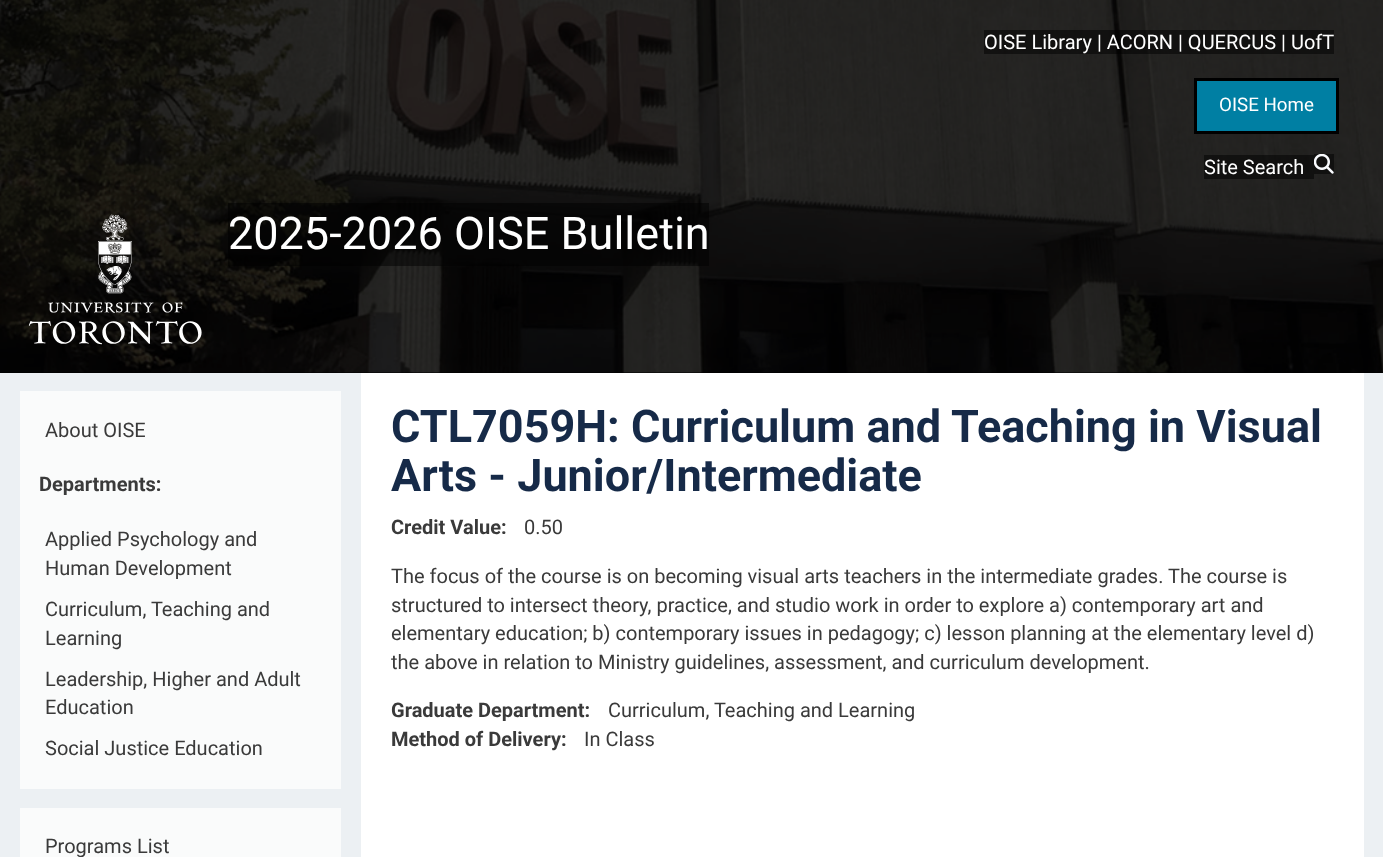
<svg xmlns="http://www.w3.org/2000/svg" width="1383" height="857">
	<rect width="100%" height="100%" fill="#000000" />
	<image x="0" y="0" width="1383" height="373" href="assets/img1.png" />
	<rect x="984" y="30" width="109" height="24" fill="#000000" fill-opacity="0.5" />
	<rect x="1093" y="30" width="15" height="24" fill="#000000" fill-opacity="0.5" />
	<rect x="1108" y="30" width="66" height="24" fill="#000000" fill-opacity="0.5" />
	<rect x="1174" y="30" width="14" height="24" fill="#000000" fill-opacity="0.5" />
	<rect x="1188" y="30" width="88" height="24" fill="#000000" fill-opacity="0.5" />
	<rect x="1276" y="30" width="15" height="24" fill="#000000" fill-opacity="0.5" />
	<rect x="1291" y="30" width="43" height="24" fill="#000000" fill-opacity="0.5" />
	<text x="984" y="49" font-family="Roboto" font-size="20" fill="#FFFFFF">OISE Library | ACORN | QUERCUS | UofT</text>
	<rect x="1195.5" y="79.5" width="142" height="53" fill="#007FA3" stroke="#000000" stroke-width="3" />
	<text x="1219" y="111" font-family="Roboto" font-size="18.75" fill="#FFFFFF">OISE Home</text>
	<rect x="1204" y="155" width="110" height="24" fill="#000000" fill-opacity="0.5" />
	<text x="1204" y="174" font-family="Roboto" font-size="20" fill="#FFFFFF">Site Search</text>
	<rect x="1314" y="154" width="20" height="20" fill="#000000" fill-opacity="0.5" />
	<image x="1314" y="154" width="20" height="20" href="assets/img2.png" />
	<image x="28" y="214" width="174" height="131" href="assets/img3.png" />
	<rect x="228" y="203" width="481" height="63" fill="#000000" fill-opacity="0.5" />
	<text x="228" y="249" font-family="Roboto" font-size="45" fill="#FFFFFF">2025-2026 OISE Bulletin</text>
	<rect x="0" y="373" width="1383" height="484" fill="#ECF0F3" />
	<rect x="20" y="391" width="321" height="398" fill="#FAFBFB" />
	<text x="45" y="437" font-family="Roboto" font-size="20" fill="#3A3A3A">About OISE</text>
	<text x="39" y="491" font-family="Roboto" font-size="20" font-weight="700" fill="#3A3A3A">Departments:</text>
	<g font-family="Roboto" font-size="20" fill="#3A3A3A">
		<text x="45" y="546">Applied Psychology and</text>
		<text x="45" y="575">Human Development</text>
		<text x="45" y="616">Curriculum, Teaching and</text>
		<text x="45" y="645">Learning</text>
		<text x="45" y="686">Leadership, Higher and Adult</text>
		<text x="45" y="714">Education</text>
		<text x="45" y="755">Social Justice Education</text>
	</g>
	<rect x="20" y="808" width="321" height="49" fill="#FAFBFB" />
	<text x="45" y="853" font-family="Roboto" font-size="20" fill="#3A3A3A">Programs List</text>
	<rect x="361" y="373" width="1003" height="484" fill="#FFFFFF" />
	<g font-family="Roboto" font-size="45" font-weight="700" fill="#162A48">
		<text x="391" y="442">CTL7059H: Curriculum and Teaching in Visual</text>
		<text x="391" y="491">Arts - Junior/Intermediate</text>
	</g>
	<text x="391" y="534" font-family="Roboto" font-size="20" font-weight="700" fill="#3A3A3A">Credit Value:</text>
	<g font-family="Roboto" font-size="20" fill="#3A3A3A">
		<text x="524" y="534">0.50</text>
		<text x="391" y="583">The focus of the course is on becoming visual arts teachers in the intermediate grades. The course is</text>
		<text x="391" y="612">structured to intersect theory, practice, and studio work in order to explore a) contemporary art and</text>
		<text x="391" y="640">elementary education; b) contemporary issues in pedagogy; c) lesson planning at the elementary level d)</text>
		<text x="391" y="669">the above in relation to Ministry guidelines, assessment, and curriculum development.</text>
	</g>
	<text x="391" y="717" font-family="Roboto" font-size="20" font-weight="700" fill="#3A3A3A">Graduate Department:</text>
	<text x="608" y="717" font-family="Roboto" font-size="20" fill="#3A3A3A">Curriculum, Teaching and Learning</text>
	<text x="391" y="746" font-family="Roboto" font-size="20" font-weight="700" fill="#3A3A3A">Method of Delivery:</text>
	<text x="584" y="746" font-family="Roboto" font-size="20" fill="#3A3A3A">In Class</text>
</svg>
